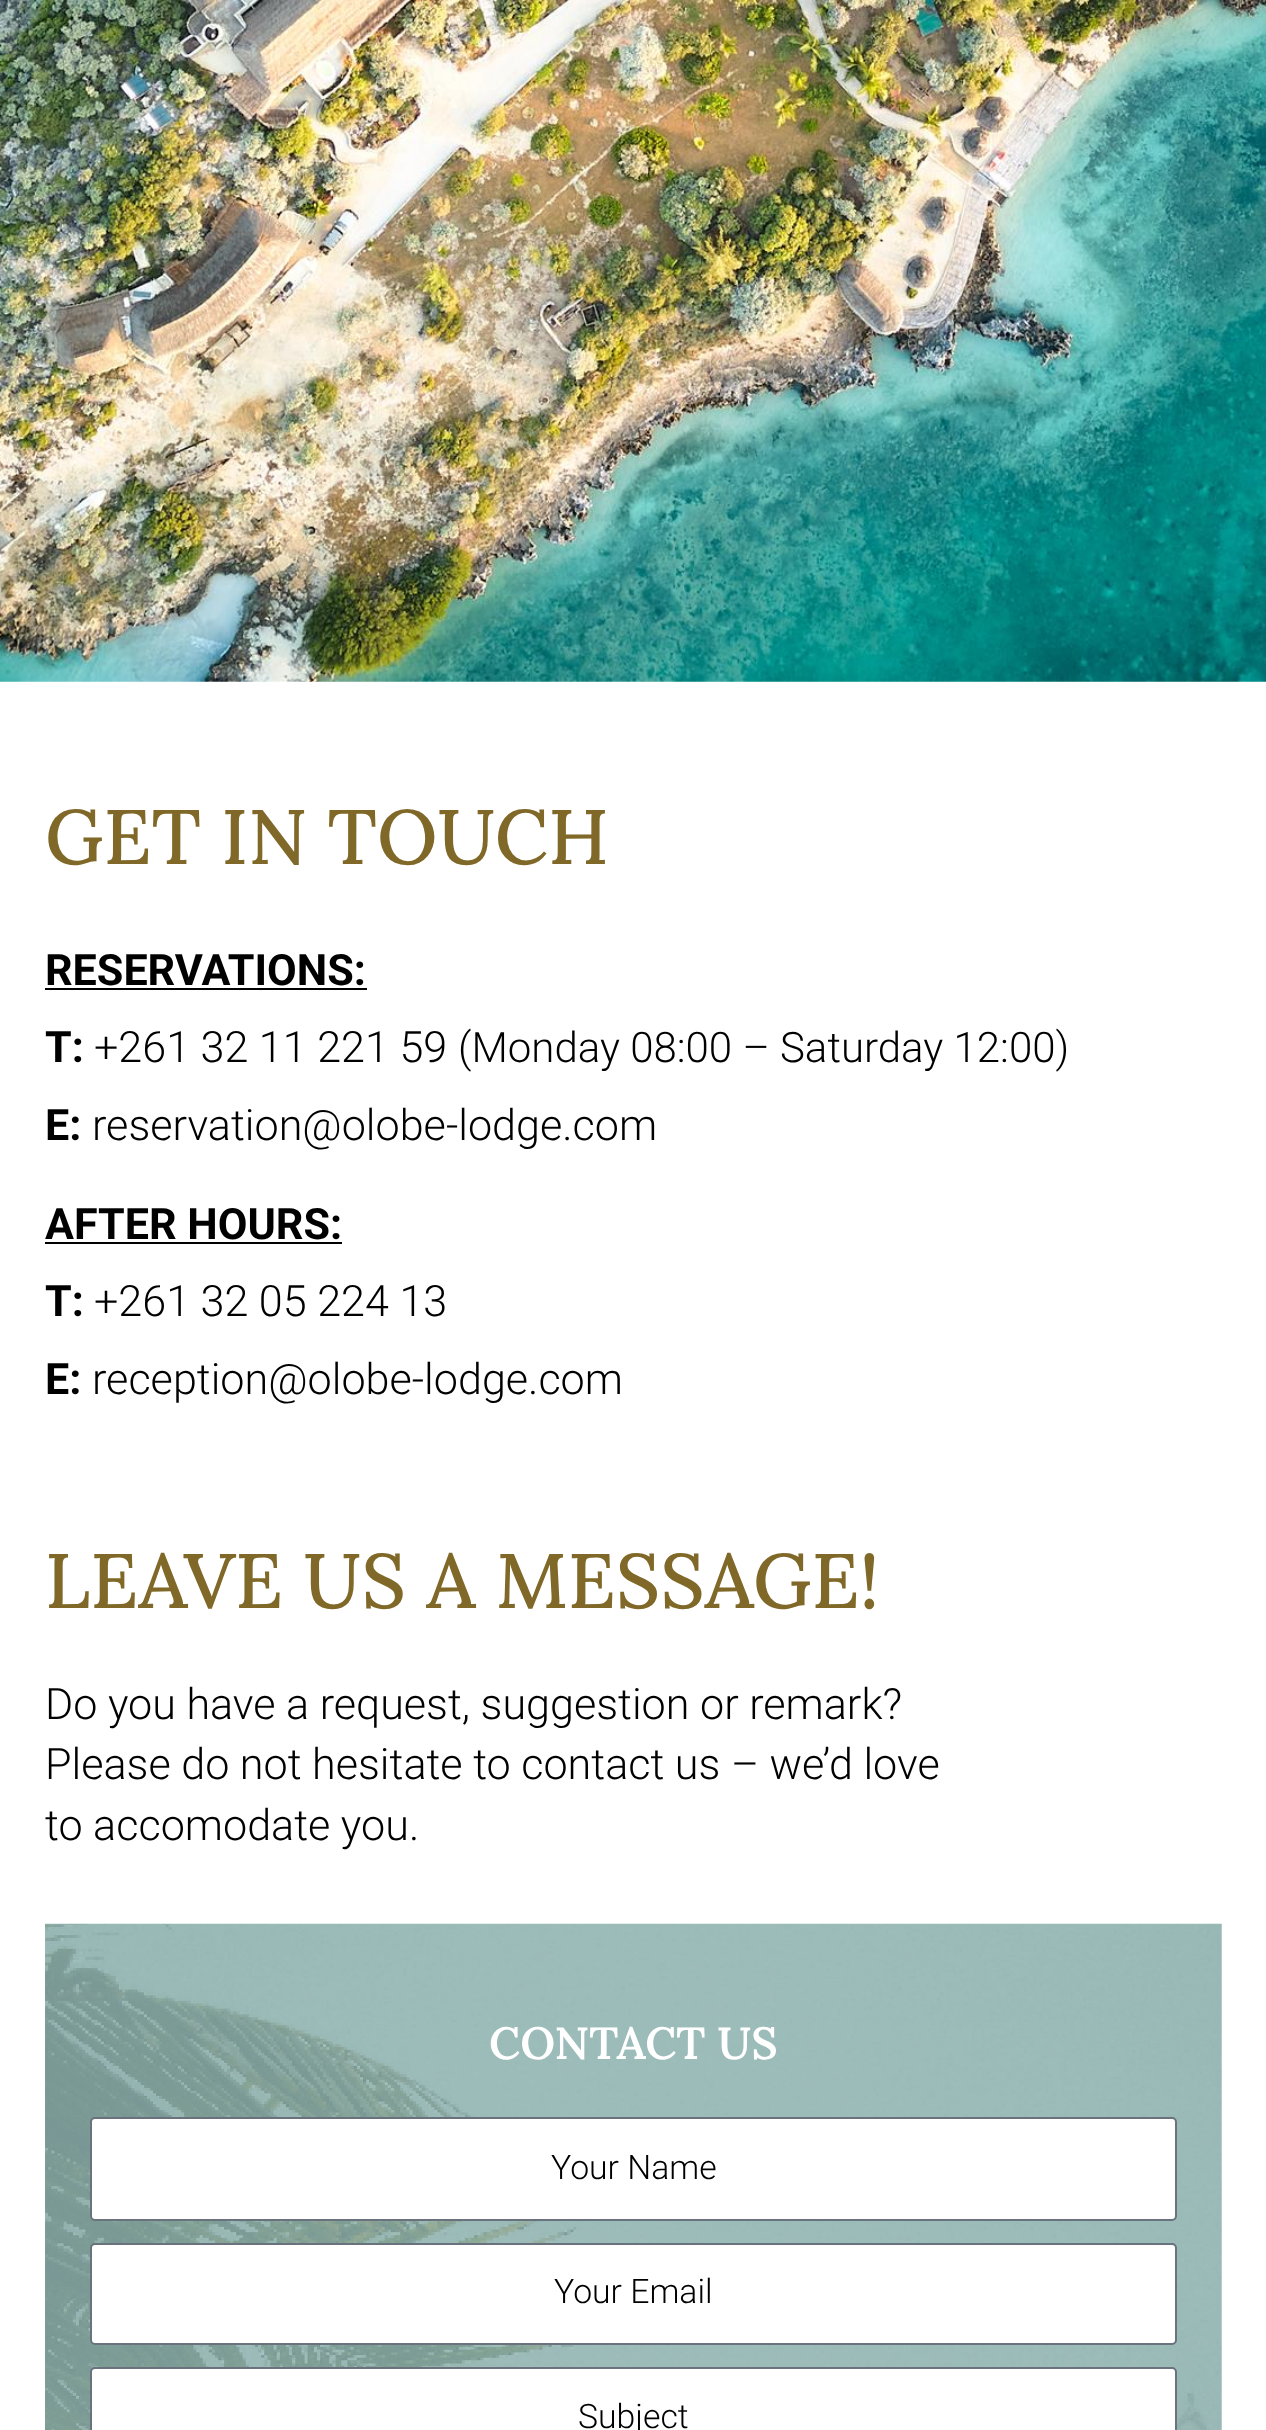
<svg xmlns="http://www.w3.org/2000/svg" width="1266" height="2430">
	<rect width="100%" height="100%" fill="#FFFFFF" />
	<image x="0" y="0" width="1266" height="682" href="assets/img1.png" />
	<text x="45" y="864" font-family="Lora" font-size="77" font-weight="500" fill="#806928">GET IN TOUCH</text>
	<text x="45" y="985" font-family="Roboto" font-size="43.1" font-weight="700" fill="#000000">RESERVATIONS:</text>
	<rect x="45" y="988" width="322" height="2" fill="#000000" />
	<text x="45" y="1062" font-family="Roboto" font-size="43.1" font-weight="700" fill="#000000">T:</text>
	<text x="94" y="1062" font-family="Roboto" font-size="43.1" font-weight="300" fill="#000000">+261 32 11 221 59</text>
	<text x="458" y="1062" font-family="Roboto" font-size="42" font-weight="300" fill="#000000">(Monday 08:00 – Saturday 12:00)</text>
	<text x="45" y="1140" font-family="Roboto" font-size="43.1" font-weight="700" fill="#000000">E:</text>
	<text x="92" y="1140" font-family="Roboto" font-size="43.1" font-weight="300" fill="#000000">reservation@olobe-lodge.com</text>
	<text x="45" y="1239" font-family="Roboto" font-size="43.1" font-weight="700" fill="#000000">AFTER HOURS:</text>
	<rect x="45" y="1242" width="297" height="2" fill="#000000" />
	<text x="45" y="1316" font-family="Roboto" font-size="43.1" font-weight="700" fill="#000000">T:</text>
	<text x="94" y="1316" font-family="Roboto" font-size="43.1" font-weight="300" fill="#000000">+261 32 05 224 13</text>
	<text x="45" y="1394" font-family="Roboto" font-size="43.1" font-weight="700" fill="#000000">E:</text>
	<text x="92" y="1394" font-family="Roboto" font-size="43.1" font-weight="300" fill="#000000">reception@olobe-lodge.com</text>
	<text x="45" y="1608" font-family="Lora" font-size="77" font-weight="500" fill="#806928">LEAVE US A MESSAGE!</text>
	<g font-family="Roboto" font-size="43.1" font-weight="300" fill="#000000">
		<text x="45" y="1719">Do you have a request, suggestion or remark?</text>
		<text x="45" y="1779">Please do not hesitate to contact us – we’d love</text>
		<text x="45" y="1840">to accomodate you.</text>
	</g>
	<image x="45" y="1923" width="1177" height="507" href="assets/img2.png" />
	<text x="489" y="2059" font-family="Lora" font-size="45" font-weight="600" fill="#FFFFFF">CONTACT US</text>
	<rect x="91" y="2118" width="1085" height="102" rx="4" fill="#FFFFFF" stroke="#69727D" stroke-width="2" />
	<text x="551" y="2179" font-family="Roboto" font-size="33.75" font-weight="300" fill="#000000">Your Name</text>
	<rect x="91" y="2244" width="1085" height="100" rx="4" fill="#FFFFFF" stroke="#69727D" stroke-width="2" />
	<text x="554" y="2303" font-family="Roboto" font-size="33.75" font-weight="300" fill="#000000">Your Email</text>
	<rect x="91" y="2368" width="1085" height="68" rx="4" fill="#FFFFFF" stroke="#69727D" stroke-width="2" />
	<text x="578" y="2428" font-family="Roboto" font-size="33.75" font-weight="300" fill="#000000">Subject</text>
</svg>
